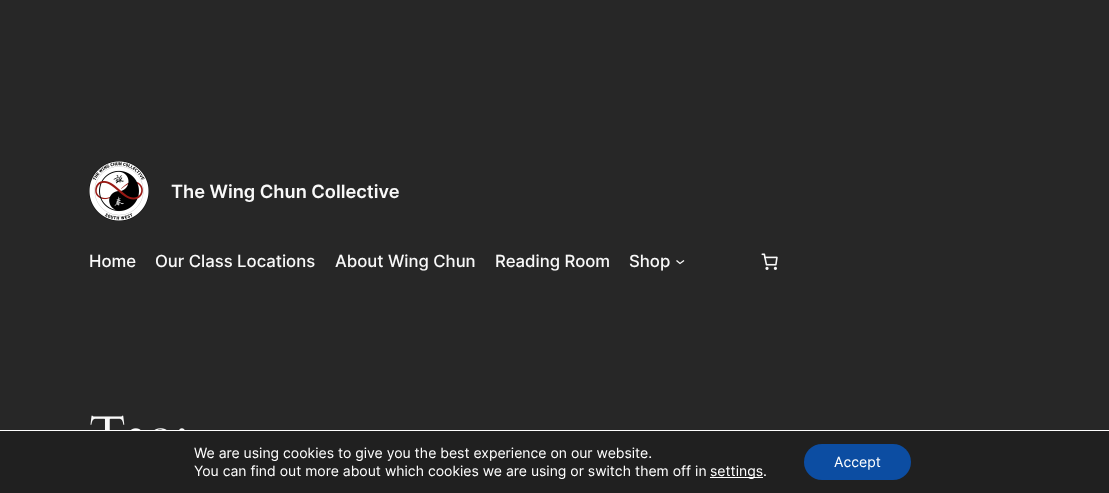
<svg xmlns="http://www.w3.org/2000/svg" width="1109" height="493">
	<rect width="100%" height="100%" fill="#272727" />
	<image x="89" y="161" width="60" height="60" href="assets/img1.png" />
	<text x="171" y="198" font-family="Inter" font-size="18.25" font-weight="600" fill="#F9F9F9">The Wing Chun Collective</text>
	<g font-family="Inter" font-size="16.75" font-weight="500" fill="#F9F9F9">
		<text x="89" y="267">Home</text>
		<text x="155" y="267">Our Class Locations</text>
		<text x="335" y="267">About Wing Chun</text>
		<text x="495" y="267">Reading Room</text>
		<text x="629" y="267">Shop</text>
	</g>
	<path d="M676.5 260.5L680 263.5L684 260.5" fill="none" stroke="#F9F9F9" stroke-width="1.3" />
	<image x="761" y="253" width="17" height="17" href="assets/img2.png" />
	<image x="90" y="415" width="95" height="15" href="assets/img3.png" />
	<rect x="0" y="431" width="1109" height="62" fill="#202020" />
	<rect x="0" y="430" width="1109" height="1" fill="#FFFFFF" />
	<g font-family="Inter" font-size="14" fill="#FFFFFF">
		<text x="194" y="458">We are using cookies to give you the best experience on our website.</text>
		<text x="194" y="476">You can find out more about which cookies we are using or switch them off in</text>
	</g>
	<rect x="710" y="477" width="53" height="1" fill="#FFFFFF" />
	<text x="710" y="476" font-family="Inter" font-size="14" fill="#FFFFFF">settings.</text>
	<rect x="804" y="444" width="107" height="36" rx="18" fill="#0C4DA2" />
	<text x="834" y="467" font-family="Inter" font-size="14" fill="#FFFFFF">Accept</text>
</svg>
